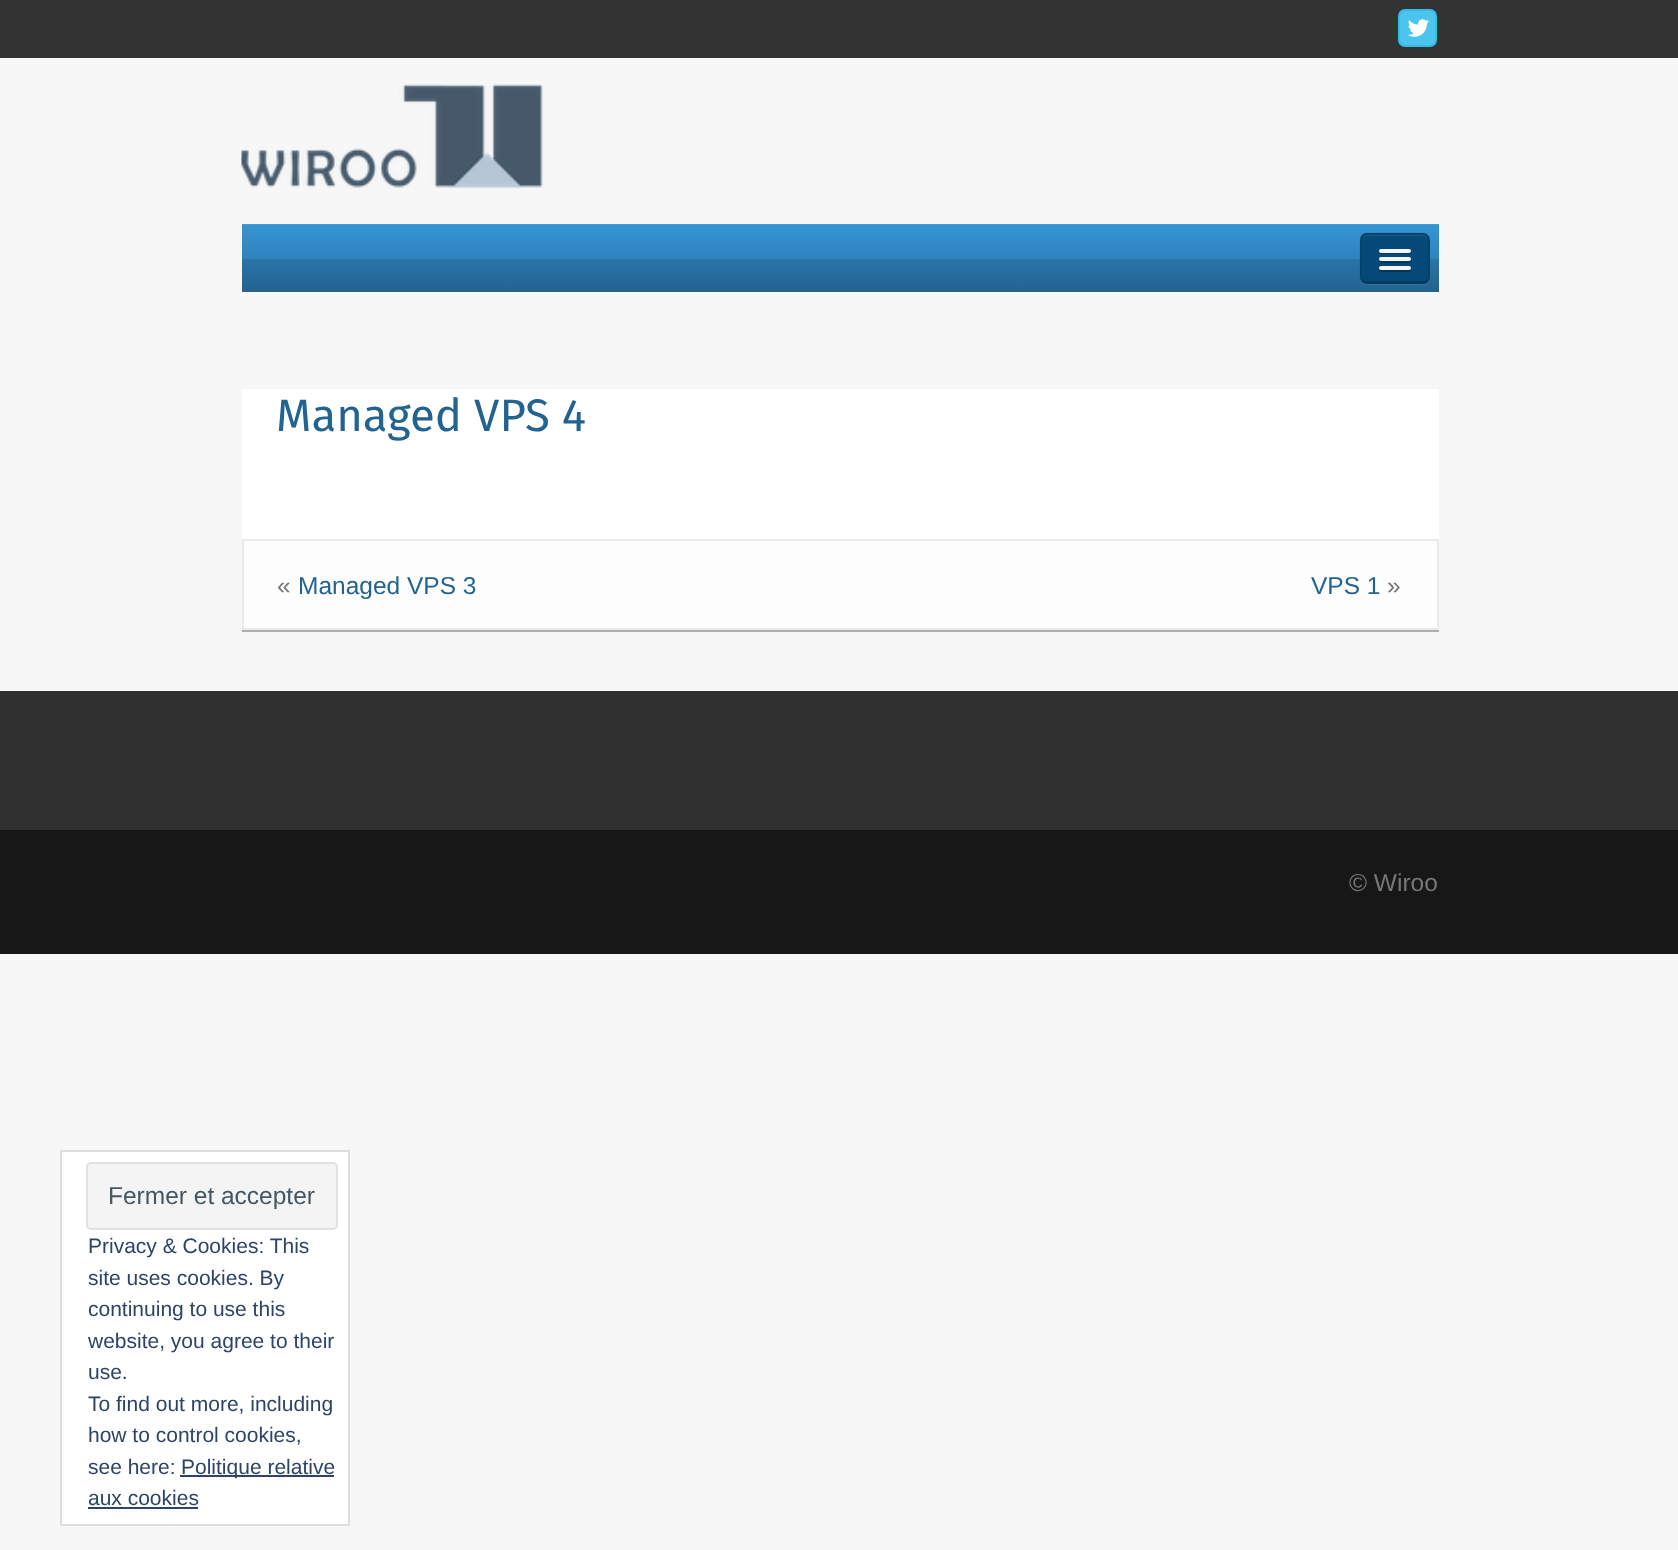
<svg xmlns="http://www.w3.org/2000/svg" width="1678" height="1550">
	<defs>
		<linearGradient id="g1" gradientUnits="userSpaceOnUse" x1="840" y1="224" x2="840" y2="292"><stop offset="0" stop-color="#54B7F9" /><stop offset="0.01" stop-color="#3494D3" /><stop offset="0.51" stop-color="#2F84BC" /><stop offset="0.52" stop-color="#2875A8" /><stop offset="1" stop-color="#236390" /></linearGradient>
	</defs>
	<rect width="100%" height="100%" fill="#F7F7F7" />
	<rect x="0" y="0" width="1678" height="58" fill="#333333" />
	<rect x="1399" y="10" width="37" height="36" rx="6" fill="#4DC4EC" stroke="#37BCE9" stroke-width="2" />
	<image x="1407" y="19" width="22" height="18" href="assets/img1.png" />
	<image x="241" y="84" width="302" height="105" href="assets/img2.png" />
	<rect x="242" y="224" width="1197" height="68" fill="url(#g1)" />
	<path d="M1360 278C1360 287 1371 285 1376 285H1404C1433 285 1430 288 1430 260V240V276C1430 280 1427 284 1423 284H1367C1364 284 1361 281 1360 278Z" fill="#FFFFFF" fill-opacity="0.07" />
	<rect x="1360" y="233" width="70" height="51" rx="7" fill="#044977" />
	<path d="M1367 236H1423C1426 236 1428 239 1428 242C1428 233 1421 235 1414 235H1376C1369 235 1362 233 1362 242C1362 239 1364 236 1367 236Z" fill="#1D5B85" />
	<path d="M1427 281C1426 282 1424.5 282.5 1423 282.5H1367C1365 282.5 1363.5 282 1362.5 281" fill="none" stroke="#033759" stroke-width="1.8" />
	<path d="M1362.5 281C1361.5 279.5 1360.5 278 1360.5 276.5V240C1360.5 238 1361.5 236.5 1362.5 235.5C1363.5 234.5 1365 233.5 1367 233.5H1423C1424.5 233.5 1426 234.5 1427 235.5C1428 236.5 1429 238 1429 240V276.5C1429 278 1428 279.5 1427 281" fill="none" stroke="#000000" stroke-opacity="0.1" stroke-width="1.8" />
	<path d="M1379 251C1377.5 255 1385 254 1385.5 254H1404.5C1405.5 254 1410.5 255 1411 252.5C1411 252 1411 251 1410.5 250.5C1410.5 251.5 1409.5 252 1409 252H1381C1380 252 1379.5 251.5 1379 251Z" fill="#033759" />
	<rect x="1379" y="249" width="32" height="4" rx="2" fill="#F5F5F5" />
	<path d="M1379.5 260C1377 264 1385 263 1385.5 263H1395C1397.5 263 1409 263.5 1410.5 262.5C1411 261.5 1411 260.5 1410.5 259.5L1409.5 260.5H1380.5Z" fill="#033759" />
	<rect x="1379" y="257" width="32" height="4" rx="2" fill="#F5F5F5" />
	<path d="M1379.5 269L1379 270.5C1379.5 273 1384.5 272 1385.5 272H1404.5C1406 272 1411 273 1411 270L1410.5 268.5C1410 269 1409.5 269.5 1409 269.5H1380.5Z" fill="#033759" />
	<rect x="1379" y="266" width="32" height="4" rx="2" fill="#F5F5F5" />
	<rect x="242" y="389" width="1197" height="150" fill="#FFFFFF" />
	<text x="276" y="431" font-family="Fira Sans" font-size="45.5" fill="#236390">Managed VPS 4</text>
	<path d="M242 630V632H1439V541H1438V630Z" fill="#ADADAD" />
	<rect x="243" y="540" width="1195" height="89" fill="#FDFDFD" stroke="#EAEAEA" stroke-width="2" />
	<text x="277" y="594" font-family="Liberation Sans" font-size="24.5" fill="#777777">«</text>
	<g font-family="Liberation Sans" font-size="24.5" fill="#236390">
		<text x="298" y="594">Managed VPS 3</text>
		<text x="1311" y="594">VPS 1</text>
	</g>
	<text x="1387" y="594" font-family="Liberation Sans" font-size="24.5" fill="#777777">»</text>
	<rect x="0" y="691" width="1678" height="139" fill="#303030" />
	<rect x="0" y="830" width="1678" height="124" fill="#171717" />
	<text x="1349" y="891" font-family="Liberation Sans" font-size="24.5" fill="#777777">© Wiroo</text>
	<rect x="61" y="1151" width="288" height="374" fill="#FFFFFF" stroke="#DEDEDE" stroke-width="2" />
	<rect x="87" y="1163" width="250" height="66" rx="4" fill="#F4F4F4" stroke="#E1E1E1" stroke-width="2" />
	<text x="108" y="1204" font-family="Liberation Sans" font-size="24.5" fill="#435764">Fermer et accepter</text>
	<g font-family="Liberation Sans" font-size="21" fill="#2E4467">
		<text x="88" y="1253">Privacy &amp; Cookies: This</text>
		<text x="88" y="1285">site uses cookies. By</text>
		<text x="88" y="1316">continuing to use this</text>
		<text x="88" y="1348">website, you agree to their</text>
		<text x="88" y="1379">use.</text>
		<text x="88" y="1411">To find out more, including</text>
		<text x="88" y="1442">how to control cookies,</text>
		<text x="88" y="1474">see here:</text>
	</g>
	<rect x="180" y="1475" width="154" height="2" fill="#2E4467" />
	<g font-family="Liberation Sans" font-size="21" fill="#2E4467">
		<text x="181" y="1474">Politique relative</text>
		<text x="88" y="1505">aux cookies</text>
	</g>
	<rect x="88" y="1507" width="110" height="2" fill="#2E4467" />
</svg>
